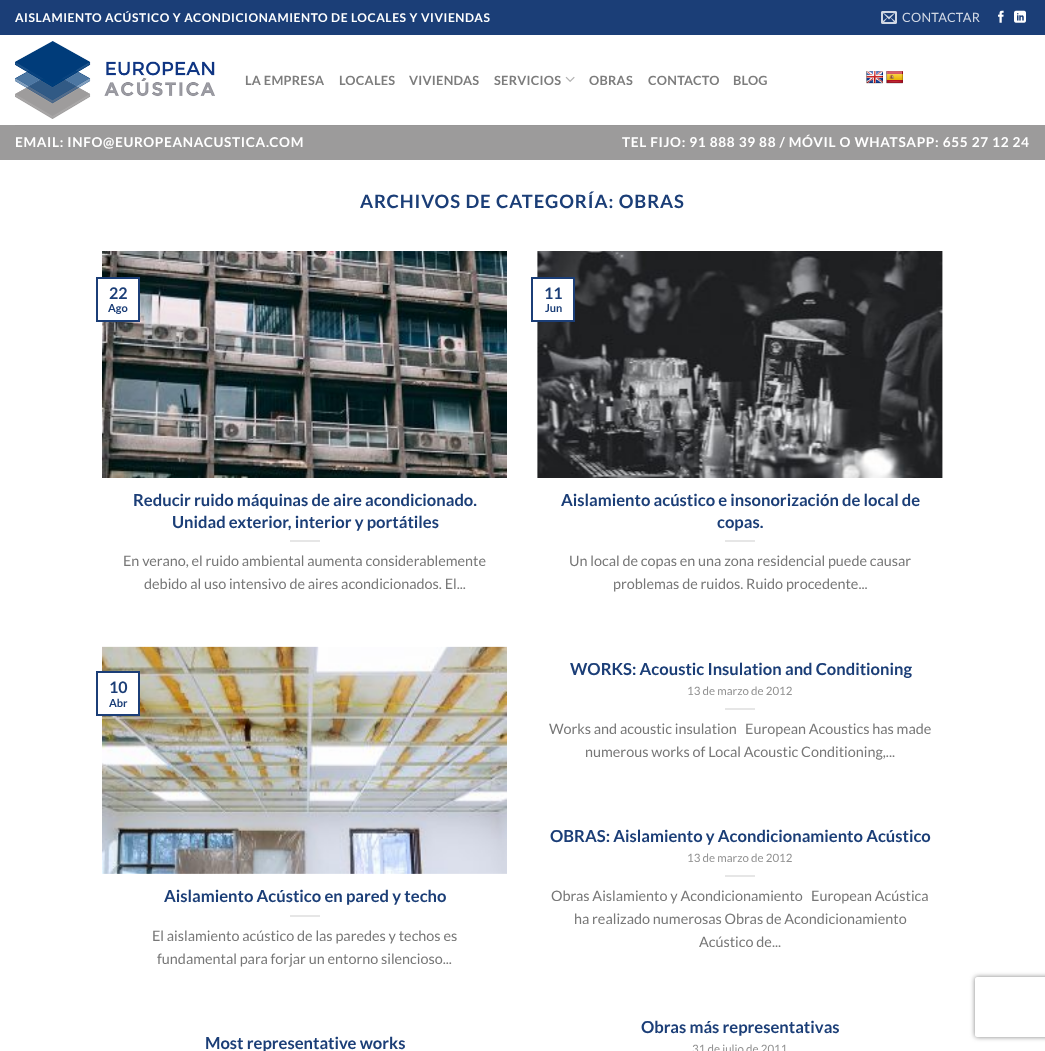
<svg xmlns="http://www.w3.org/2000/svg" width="1045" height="1051">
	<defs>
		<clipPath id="clip1"><path d="M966 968H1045V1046H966ZM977 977H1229C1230 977 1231 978 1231 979V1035C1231 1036 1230 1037 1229 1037H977C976 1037 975 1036 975 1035V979C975 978 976 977 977 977Z" clip-rule="evenodd" /></clipPath>
	</defs>
	<rect width="100%" height="100%" fill="#FFFFFF" />
	<rect x="0" y="0" width="1045" height="35" fill="#1B3E77" />
	<text x="15" y="22" font-family="Lato" font-size="12" font-weight="700" letter-spacing="0.6" fill="#FFFFFF">AISLAMIENTO ACÚSTICO Y ACONDICIONAMIENTO DE LOCALES Y VIVIENDAS</text>
	<image x="881" y="11" width="16" height="13" href="assets/img1.png" />
	<text x="902" y="22" font-family="Lato" font-size="12.75" letter-spacing="0.25" fill="#D1D8E4">CONTACTAR</text>
	<image x="998" y="10" width="6" height="13" href="assets/img2.png" />
	<image x="1014" y="10" width="12" height="13" href="assets/img3.png" />
	<image x="15" y="41" width="200" height="78" href="assets/img4.png" />
	<g font-family="Lato" font-size="12.75" font-weight="700" letter-spacing="0.25" fill="#7D7D7D">
		<text x="245" y="85">LA EMPRESA</text>
		<text x="339" y="85">LOCALES</text>
		<text x="409" y="85">VIVIENDAS</text>
		<text x="494" y="85">SERVICIOS</text>
	</g>
	<image x="565" y="76" width="10" height="6" href="assets/img5.png" />
	<g font-family="Lato" font-size="12.75" font-weight="700" letter-spacing="0.25" fill="#7D7D7D">
		<text x="589" y="85">OBRAS</text>
		<text x="648" y="85">CONTACTO</text>
		<text x="733" y="85">BLOG</text>
	</g>
	<image x="866" y="71" width="17" height="13" href="assets/img6.png" />
	<image x="886" y="71" width="17" height="13" href="assets/img7.png" />
	<rect x="0" y="125" width="1045" height="35" fill="#9C9B9B" />
	<rect x="15" y="125" width="1015" height="1" fill="#989797" />
	<g font-family="Lato" font-size="13.6" font-weight="700" letter-spacing="0.68" fill="#FFFFFF">
		<text x="15" y="147">EMAIL: INFO@EUROPEANACUSTICA.COM</text>
		<text x="622" y="147">TEL FIJO: 91 888 39 88 / MÓVIL O WHATSAPP: 655 27 12 24</text>
	</g>
	<text x="360" y="208" font-family="Lato" font-size="18.4" font-weight="700" letter-spacing="0.9" fill="#1B3E77">ARCHIVOS DE CATEGORÍA: OBRAS</text>
	<image x="102" y="251" width="405" height="227" href="assets/img8.png" />
	<rect x="102" y="279" width="36" height="41" fill="#FFFFFF" />
	<rect x="97" y="278" width="42" height="43" fill="none" stroke="#1B3E77" stroke-width="2" />
	<text x="109" y="299" font-family="Lato" font-size="16" font-weight="700" fill="#1B3E77">22</text>
	<text x="108" y="312" font-family="Lato" font-size="11" font-weight="700" fill="#1B3E77">Ago</text>
	<g font-family="Lato" font-size="16.6" font-weight="700" fill="#1B3E77">
		<text x="133" y="506">Reducir ruido máquinas de aire acondicionado.</text>
		<text x="172" y="528">Unidad exterior, interior y portátiles</text>
	</g>
	<rect x="290" y="540" width="30" height="2" fill="#E6E6E6" />
	<g font-family="Lato" font-size="14.4" fill="#777777">
		<text x="123" y="566">En verano, el ruido ambiental aumenta considerablemente</text>
		<text x="144" y="589">debido al uso intensivo de aires acondicionados. El...</text>
	</g>
	<image x="537" y="251" width="406" height="227" href="assets/img9.png" />
	<rect x="537" y="279" width="36" height="41" fill="#FFFFFF" />
	<rect x="532" y="278" width="42" height="43" fill="none" stroke="#1B3E77" stroke-width="2" />
	<text x="544" y="299" font-family="Lato" font-size="16" font-weight="700" fill="#1B3E77">11</text>
	<text x="545" y="312" font-family="Lato" font-size="11" font-weight="700" fill="#1B3E77">Jun</text>
	<g font-family="Lato" font-size="16.6" font-weight="700" fill="#1B3E77">
		<text x="561" y="506">Aislamiento acústico e insonorización de local de</text>
		<text x="717" y="528">copas.</text>
	</g>
	<rect x="725" y="540" width="30" height="2" fill="#E6E6E6" />
	<g font-family="Lato" font-size="14.4" fill="#777777">
		<text x="569" y="566">Un local de copas en una zona residencial puede causar</text>
		<text x="613" y="589">problemas de ruidos. Ruido procedente...</text>
	</g>
	<image x="102" y="646" width="405" height="228" href="assets/img10.png" />
	<rect x="102" y="673" width="36" height="41" fill="#FFFFFF" />
	<rect x="97" y="672" width="42" height="43" fill="none" stroke="#1B3E77" stroke-width="2" />
	<text x="109" y="693" font-family="Lato" font-size="16" font-weight="700" fill="#1B3E77">10</text>
	<text x="109" y="707" font-family="Lato" font-size="11" font-weight="700" fill="#1B3E77">Abr</text>
	<text x="164" y="902" font-family="Lato" font-size="16.6" font-weight="700" fill="#1B3E77">Aislamiento Acústico en pared y techo</text>
	<rect x="290" y="915" width="30" height="2" fill="#E6E6E6" />
	<g font-family="Lato" font-size="14.4" fill="#777777">
		<text x="152" y="941">El aislamiento acústico de las paredes y techos es</text>
		<text x="157" y="964">fundamental para forjar un entorno silencioso...</text>
	</g>
	<text x="570" y="675" font-family="Lato" font-size="16.6" font-weight="700" fill="#1B3E77">WORKS: Acoustic Insulation and Conditioning</text>
	<text x="687" y="695" font-family="Lato" font-size="11.5" fill="#929292">13 de marzo de 2012</text>
	<rect x="725" y="708" width="30" height="2" fill="#E6E6E6" />
	<g font-family="Lato" font-size="14.4" fill="#777777">
		<text x="549" y="734" xml:space="preserve">Works and acoustic insulation   European Acoustics has made</text>
		<text x="585" y="757">numerous works of Local Acoustic Conditioning,...</text>
	</g>
	<text x="550" y="842" font-family="Lato" font-size="16.6" font-weight="700" fill="#1B3E77">OBRAS: Aislamiento y Acondicionamiento Acústico</text>
	<text x="687" y="862" font-family="Lato" font-size="11.5" fill="#929292">13 de marzo de 2012</text>
	<rect x="725" y="875" width="30" height="2" fill="#E6E6E6" />
	<g font-family="Lato" font-size="14.4" fill="#777777">
		<text x="551" y="901" xml:space="preserve">Obras Aislamiento y Acondicionamiento   European Acústica</text>
		<text x="574" y="924">ha realizado numerosas Obras de Acondicionamiento</text>
		<text x="699" y="947">Acústico de...</text>
	</g>
	<g font-family="Lato" font-size="16.6" font-weight="700" fill="#1B3E77">
		<text x="205" y="1049">Most representative works</text>
		<text x="641" y="1033">Obras más representativas</text>
	</g>
	<text x="692" y="1053" font-family="Lato" font-size="11.5" fill="#929292">31 de julio de 2011</text>
	<g clip-path="url(#clip1)">
		<rect x="975" y="977" width="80" height="60" rx="2" fill="#808080" filter="blur(2.5px)" />
	</g>
</svg>
